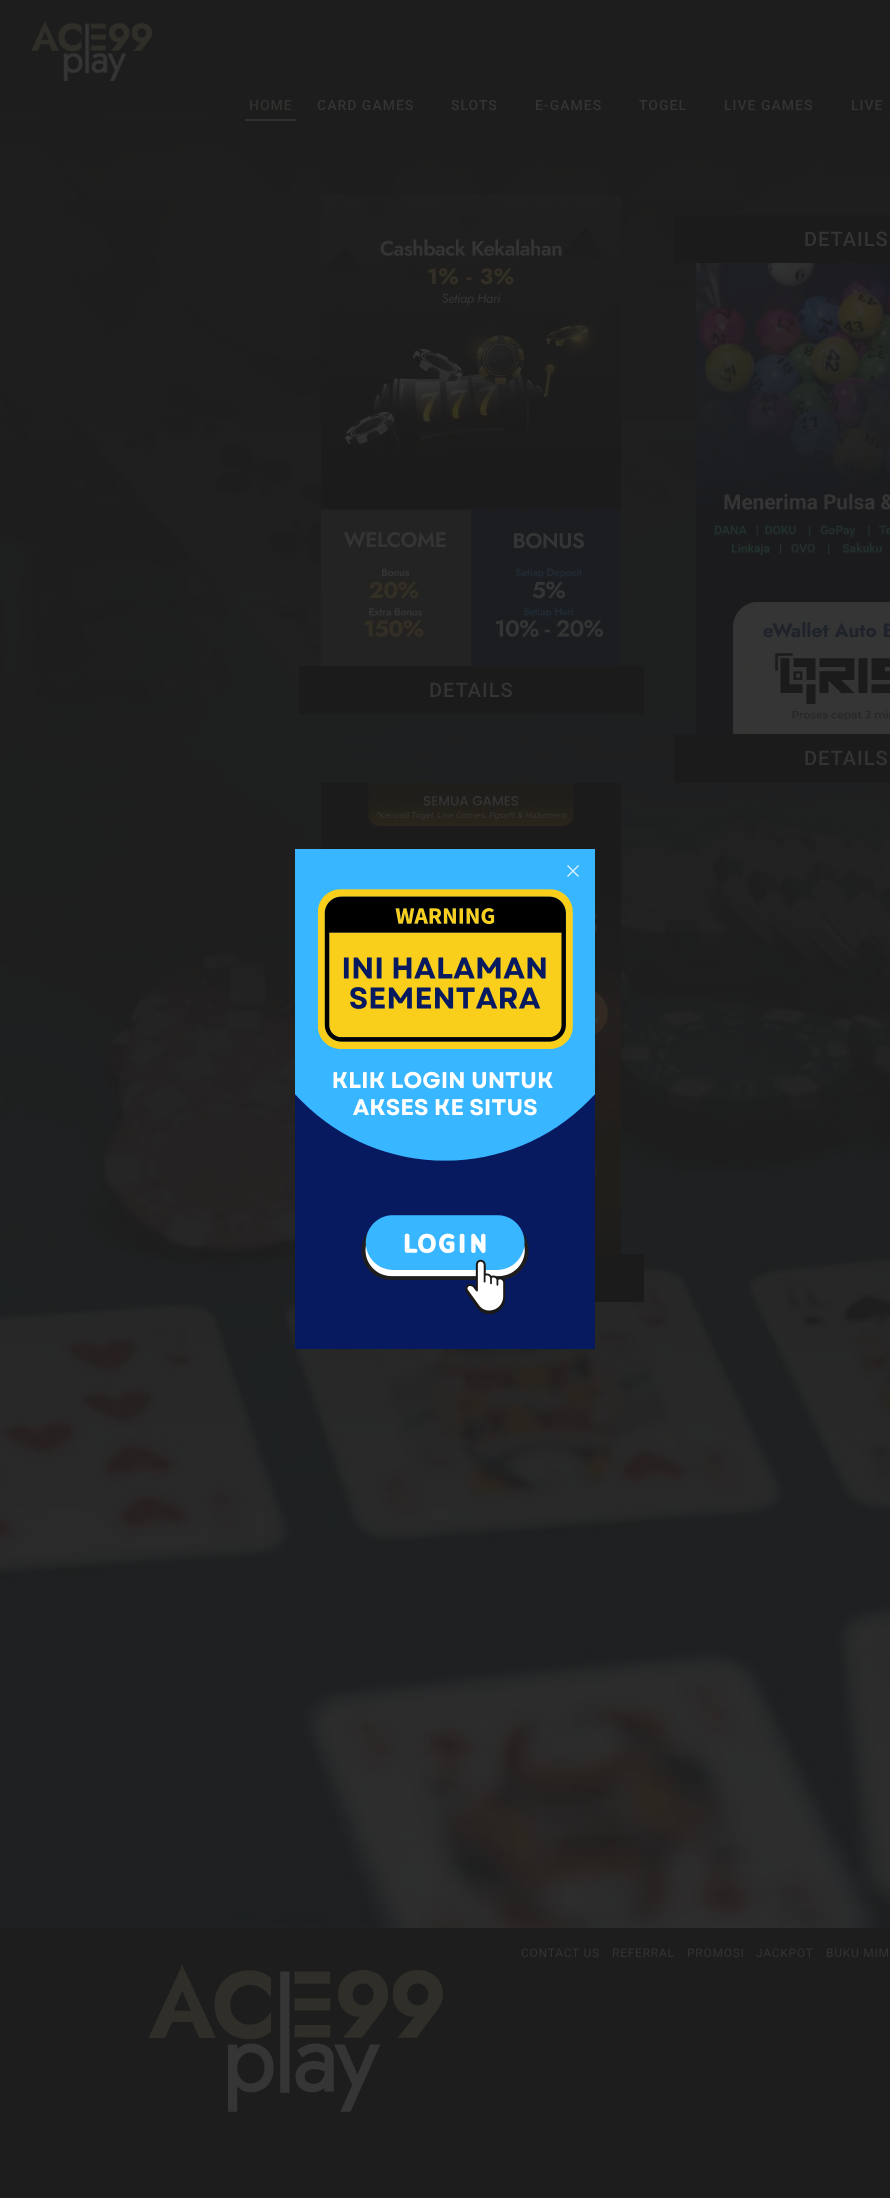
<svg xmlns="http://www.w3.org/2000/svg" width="890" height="2198">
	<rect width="100%" height="100%" fill="#FFFFFF" />
	<image x="0" y="0" width="890" height="1928" href="assets/img1.png" />
	<image x="31" y="21" width="121" height="60" href="assets/img2.png" />
	<rect x="245" y="119" width="51" height="2" fill="#32312D" />
	<text x="249" y="110" font-family="Roboto" font-size="14" font-weight="500" letter-spacing="1" fill="#32312D">HOME</text>
	<g font-family="Roboto" font-size="14" font-weight="500" letter-spacing="1" fill="#343434">
		<text x="317" y="110">CARD GAMES</text>
		<text x="451" y="110">SLOTS</text>
		<text x="535" y="110">E-GAMES</text>
		<text x="639" y="110">TOGEL</text>
		<text x="724" y="110">LIVE GAMES</text>
		<text x="851" y="110">LIVE</text>
	</g>
	<rect x="674" y="215" width="216" height="48" fill="#1B1B1B" />
	<text x="804" y="246" font-family="Roboto" font-size="20" font-weight="500" letter-spacing="1" fill="#343434">DETAILS</text>
	<image x="321" y="195" width="300" height="471" href="assets/img3.png" />
	<rect x="299" y="666" width="345" height="48" fill="#1B1B1B" />
	<text x="429" y="697" font-family="Roboto" font-size="20" font-weight="500" letter-spacing="1" fill="#343434">DETAILS</text>
	<image x="696" y="263" width="194" height="471" href="assets/img4.png" />
	<rect x="674" y="734" width="216" height="49" fill="#1B1B1B" />
	<text x="804" y="765" font-family="Roboto" font-size="20" font-weight="500" letter-spacing="1" fill="#343434">DETAILS</text>
	<image x="321" y="783" width="300" height="471" href="assets/img5.png" />
	<rect x="595" y="1254" width="49" height="48" fill="#1B1B1B" />
	<rect x="0" y="1928" width="890" height="270" fill="#1D1D1D" />
	<g font-family="Roboto" font-size="12" letter-spacing="0.75" fill="#343434">
		<text x="521" y="1957">CONTACT US</text>
		<text x="612" y="1957">REFERRAL</text>
		<text x="687" y="1957">PROMOSI</text>
		<text x="756" y="1957">JACKPOT</text>
		<text x="826" y="1957">BUKU MIM</text>
	</g>
	<image x="148" y="1965" width="295" height="147" href="assets/img6.png" />
	<image x="295" y="849" width="300" height="500" href="assets/img7.png" />
	<image x="567" y="865" width="12" height="12" href="assets/img8.png" />
</svg>
